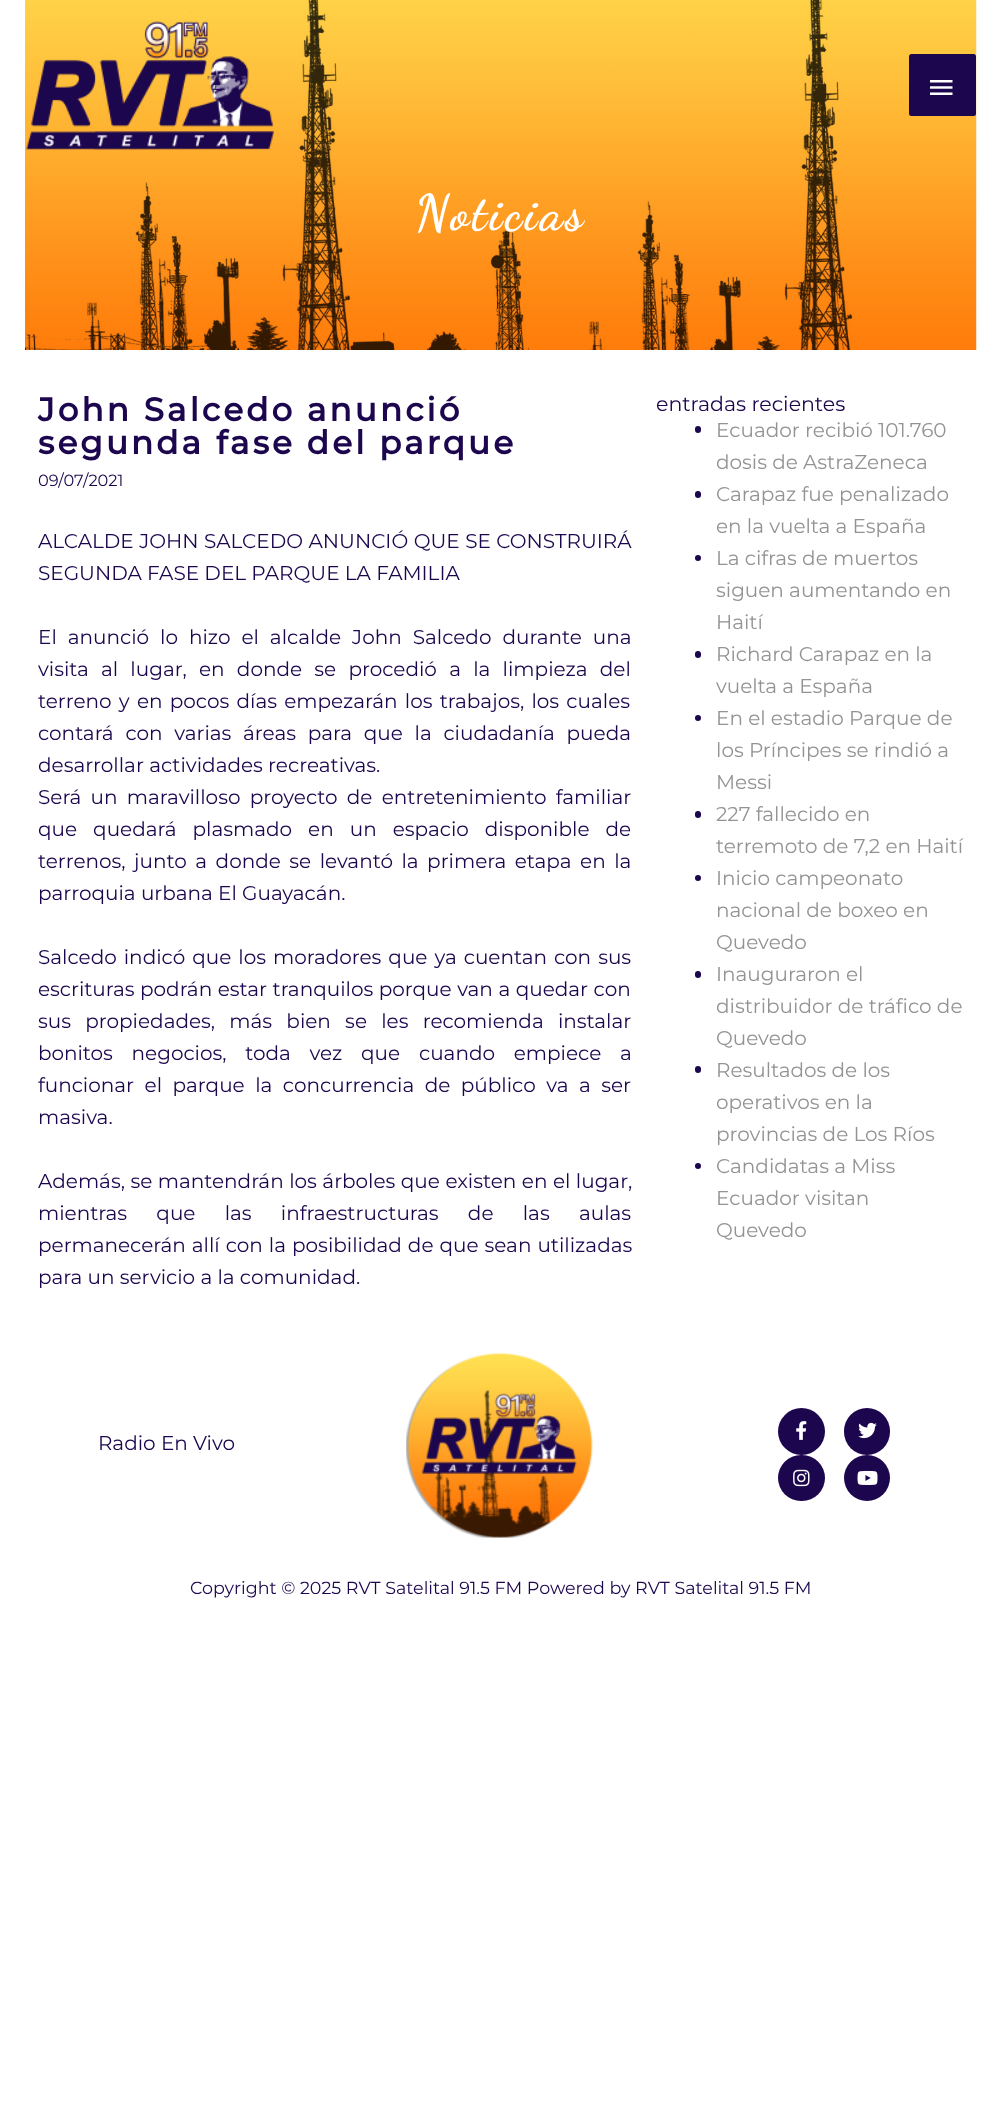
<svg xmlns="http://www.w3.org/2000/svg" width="1001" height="2112">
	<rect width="100%" height="100%" fill="#FFFFFF" />
	<image x="25" y="0" width="952" height="350" href="assets/img3.png" />
	<image x="26" y="21" width="248" height="129" href="assets/img1.png" />
	<rect x="910.5" y="55.5" width="64" height="59" rx="1" fill="#1C064E" stroke="#1C064E" stroke-width="3" />
	<image x="930" y="80" width="23" height="15" href="assets/img2.png" />
	<text x="415" y="229" font-family="Dancing Script" font-size="50" font-weight="700" letter-spacing="3.1" fill="#FFFFFF">Noticias</text>
	<g font-family="Montserrat" font-size="32.5" font-weight="700" letter-spacing="3.1" fill="#1C064E">
		<text x="38" y="421">John Salcedo anunció</text>
		<text x="38" y="454">segunda fase del parque</text>
	</g>
	<text x="38" y="486" font-family="Montserrat" font-size="16.25" fill="#1C064E">09/07/2021</text>
	<g font-family="Montserrat" font-size="20" fill="#1C064E">
		<text x="38" y="548" word-spacing="0.25">ALCALDE JOHN SALCEDO ANUNCIÓ QUE SE CONSTRUIRÁ</text>
		<text x="38" y="580">SEGUNDA FASE DEL PARQUE LA FAMILIA</text>
		<text x="38" y="644" word-spacing="5.75">El anunció lo hizo el alcalde John Salcedo durante una</text>
		<text x="38" y="676" word-spacing="7">visita al lugar, en donde se procedió a la limpieza del</text>
		<text x="38" y="708" word-spacing="2">terreno y en pocos días empezarán los trabajos, los cuales</text>
		<text x="38" y="740" word-spacing="6.5">contará con varias áreas para que la ciudadanía pueda</text>
		<text x="38" y="772">desarrollar actividades recreativas.</text>
		<text x="38" y="804" word-spacing="4">Será un maravilloso proyecto de entretenimiento familiar</text>
		<text x="38" y="836" word-spacing="10.75">que quedará plasmado en un espacio disponible de</text>
		<text x="38" y="868" word-spacing="3.25">terrenos, junto a donde se levantó la primera etapa en la</text>
		<text x="38" y="900">parroquia urbana El Guayacán.</text>
		<text x="38" y="964" word-spacing="1.75">Salcedo indicó que los moradores que ya cuentan con sus</text>
		<text x="38" y="996" word-spacing="0.25">escrituras podrán estar tranquilos porque van a quedar con</text>
		<text x="38" y="1028" word-spacing="9">sus propiedades, más bien se les recomienda instalar</text>
		<text x="38" y="1060" word-spacing="13.5">bonitos negocios, toda vez que cuando empiece a</text>
		<text x="38" y="1092" word-spacing="5.25">funcionar el parque la concurrencia de público va a ser</text>
		<text x="38" y="1124">masiva.</text>
		<text x="38" y="1188" word-spacing="0.25">Además, se mantendrán los árboles que existen en el lugar,</text>
		<text x="38" y="1220" word-spacing="24">mientras que las infraestructuras de las aulas</text>
		<text x="38" y="1252" word-spacing="0.75">permanecerán allí con la posibilidad de que sean utilizadas</text>
		<text x="38" y="1284">para un servicio a la comunidad.</text>
	</g>
	<text x="656" y="411" font-family="Montserrat" font-size="20.5" fill="#1C064E">entradas recientes</text>
	<rect x="695" y="426" width="6" height="7" rx="3" fill="#1C064E" />
	<g font-family="Montserrat" font-size="20" fill="#939393">
		<text x="716" y="437">Ecuador recibió 101.760</text>
		<text x="716" y="469">dosis de AstraZeneca</text>
	</g>
	<rect x="695" y="491" width="6" height="7" rx="3" fill="#1C064E" />
	<g font-family="Montserrat" font-size="20" fill="#939393">
		<text x="716" y="501">Carapaz fue penalizado</text>
		<text x="716" y="533">en la vuelta a España</text>
	</g>
	<circle cx="698" cy="558" r="3" fill="#1C064E" />
	<g font-family="Montserrat" font-size="20" fill="#939393">
		<text x="716" y="565">La cifras de muertos</text>
		<text x="716" y="597">siguen aumentando en</text>
		<text x="716" y="629">Haití</text>
	</g>
	<rect x="695" y="651" width="6" height="7" rx="3" fill="#1C064E" />
	<g font-family="Montserrat" font-size="20" fill="#939393">
		<text x="716" y="661">Richard Carapaz en la</text>
		<text x="716" y="693">vuelta a España</text>
	</g>
	<circle cx="698" cy="718" r="3" fill="#1C064E" />
	<g font-family="Montserrat" font-size="20" fill="#939393">
		<text x="716" y="725">En el estadio Parque de</text>
		<text x="716" y="757">los Príncipes se rindió a</text>
		<text x="716" y="789">Messi</text>
	</g>
	<rect x="695" y="811" width="6" height="7" rx="3" fill="#1C064E" />
	<g font-family="Montserrat" font-size="20" fill="#939393">
		<text x="716" y="821">227 fallecido en</text>
		<text x="716" y="853">terremoto de 7,2 en Haití</text>
	</g>
	<circle cx="698" cy="878" r="3" fill="#1C064E" />
	<g font-family="Montserrat" font-size="20" fill="#939393">
		<text x="716" y="885">Inicio campeonato</text>
		<text x="716" y="917">nacional de boxeo en</text>
		<text x="716" y="949">Quevedo</text>
	</g>
	<rect x="695" y="971" width="6" height="7" rx="3" fill="#1C064E" />
	<g font-family="Montserrat" font-size="20" fill="#939393">
		<text x="716" y="981">Inauguraron el</text>
		<text x="716" y="1013">distribuidor de tráfico de</text>
		<text x="716" y="1045">Quevedo</text>
	</g>
	<rect x="695" y="1066" width="6" height="7" rx="3" fill="#1C064E" />
	<g font-family="Montserrat" font-size="20" fill="#939393">
		<text x="716" y="1077">Resultados de los</text>
		<text x="716" y="1109">operativos en la</text>
		<text x="716" y="1141">provincias de Los Ríos</text>
	</g>
	<circle cx="698" cy="1166" r="3" fill="#1C064E" />
	<g font-family="Montserrat" font-size="20" fill="#939393">
		<text x="716" y="1173">Candidatas a Miss</text>
		<text x="716" y="1205">Ecuador visitan</text>
		<text x="716" y="1237">Quevedo</text>
	</g>
	<text x="98" y="1450" font-family="Montserrat" font-size="20" fill="#1C064E">Radio En Vivo</text>
	<image x="406" y="1352" width="187" height="186" href="assets/img4.png" />
	<circle cx="801.5" cy="1431.5" r="23.5" fill="#1C064E" />
	<image x="796" y="1421" width="11" height="19" href="assets/img5.png" />
	<rect x="844" y="1408" width="46" height="47" rx="23" fill="#1C064E" />
	<image x="858" y="1422" width="19" height="17" href="assets/img6.png" />
	<rect x="778" y="1455" width="47" height="46" rx="23" fill="#1C064E" />
	<image x="793" y="1469" width="17" height="18" href="assets/img7.png" />
	<circle cx="867" cy="1478" r="23" fill="#1C064E" />
	<image x="857" y="1470" width="21" height="15" href="assets/img8.png" />
	<text x="190" y="1594" font-family="Montserrat" font-size="17.5" fill="#1C064E">Copyright © 2025 RVT Satelital 91.5 FM Powered by RVT Satelital 91.5 FM</text>
</svg>
